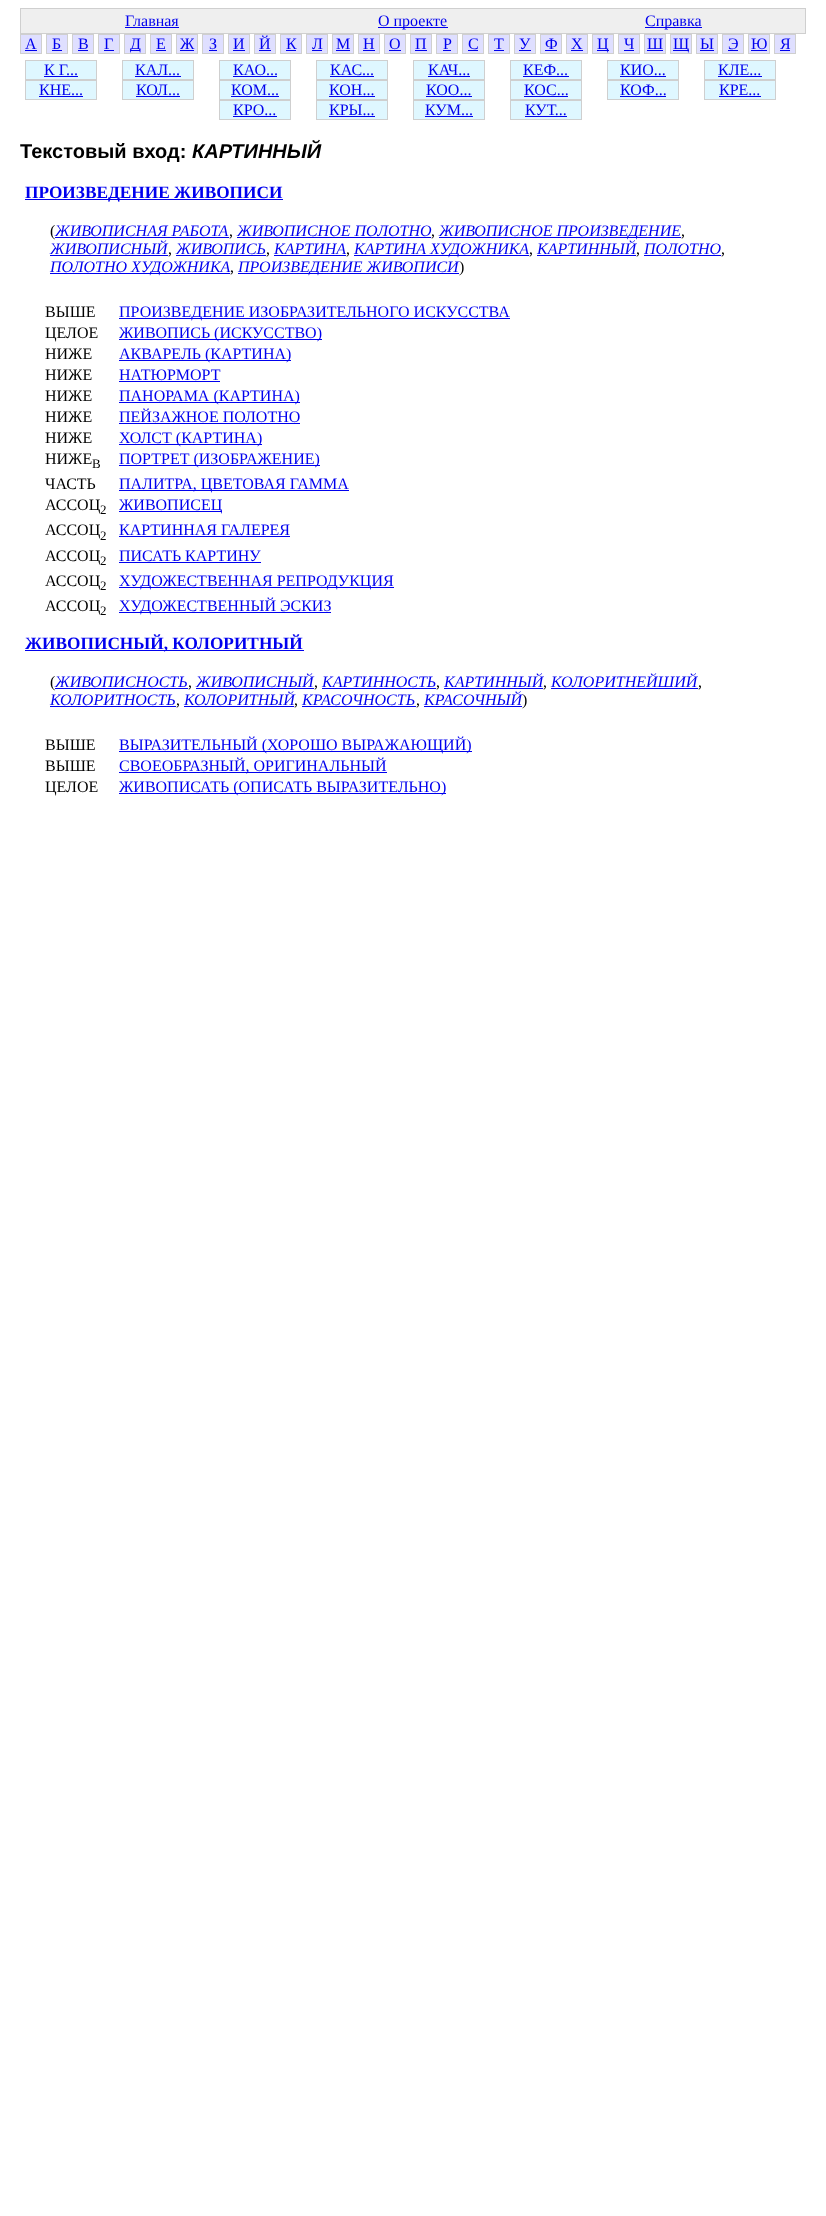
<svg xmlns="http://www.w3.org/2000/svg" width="826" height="2216">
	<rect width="100%" height="100%" fill="#FFFFFF" />
	<rect x="20.5" y="8.5" width="785" height="25" fill="#EFEFEF" stroke="#CFCFCF" />
	<text x="125" y="26" font-family="Liberation Serif" font-size="16" fill="#0000EE">Главная</text>
	<rect x="125" y="27" width="54" height="1" fill="#0000EE" />
	<rect x="378" y="27" width="70" height="1" fill="#0000EE" />
	<text x="378" y="26" font-family="Liberation Serif" font-size="16" fill="#0000EE">О проекте</text>
	<rect x="645" y="27" width="57" height="1" fill="#0000EE" />
	<text x="645" y="26" font-family="Liberation Serif" font-size="16" fill="#0000EE">Справка</text>
	<rect x="20.5" y="34.5" width="21" height="19" fill="#DFDFFF" stroke="#CFCFCF" />
	<text x="25" y="49" font-family="Liberation Serif" font-size="16" fill="#0000EE">А</text>
	<rect x="25" y="50" width="12" height="1" fill="#0000EE" />
	<rect x="46.5" y="34.5" width="21" height="19" fill="#DFDFFF" stroke="#CFCFCF" />
	<text x="52" y="49" font-family="Liberation Serif" font-size="16" fill="#0000EE">Б</text>
	<rect x="52" y="50" width="10" height="1" fill="#0000EE" />
	<rect x="72.5" y="34.5" width="21" height="19" fill="#DFDFFF" stroke="#CFCFCF" />
	<text x="78" y="49" font-family="Liberation Serif" font-size="16" fill="#0000EE">В</text>
	<rect x="78" y="50" width="10" height="1" fill="#0000EE" />
	<rect x="98.5" y="34.5" width="21" height="19" fill="#DFDFFF" stroke="#CFCFCF" />
	<text x="104" y="49" font-family="Liberation Serif" font-size="16" fill="#0000EE">Г</text>
	<rect x="104" y="50" width="10" height="1" fill="#0000EE" />
	<rect x="124.5" y="34.5" width="21" height="19" fill="#DFDFFF" stroke="#CFCFCF" />
	<rect x="130" y="50" width="10" height="1" fill="#0000EE" />
	<text x="130" y="49" font-family="Liberation Serif" font-size="16" fill="#0000EE">Д</text>
	<rect x="150.5" y="34.5" width="21" height="19" fill="#DFDFFF" stroke="#CFCFCF" />
	<text x="156" y="49" font-family="Liberation Serif" font-size="16" fill="#0000EE">Е</text>
	<rect x="156" y="50" width="10" height="1" fill="#0000EE" />
	<rect x="176.5" y="34.5" width="21" height="19" fill="#DFDFFF" stroke="#CFCFCF" />
	<text x="180" y="49" font-family="Liberation Serif" font-size="16" fill="#0000EE">Ж</text>
	<rect x="180" y="50" width="14" height="1" fill="#0000EE" />
	<rect x="202.5" y="34.5" width="21" height="19" fill="#DFDFFF" stroke="#CFCFCF" />
	<text x="209" y="49" font-family="Liberation Serif" font-size="16" fill="#0000EE">З</text>
	<rect x="209" y="50" width="8" height="1" fill="#0000EE" />
	<rect x="228.5" y="34.5" width="21" height="19" fill="#DFDFFF" stroke="#CFCFCF" />
	<text x="233" y="49" font-family="Liberation Serif" font-size="16" fill="#0000EE">И</text>
	<rect x="233" y="50" width="12" height="1" fill="#0000EE" />
	<rect x="254.5" y="34.5" width="21" height="19" fill="#DFDFFF" stroke="#CFCFCF" />
	<text x="259" y="49" font-family="Liberation Serif" font-size="16" fill="#0000EE">Й</text>
	<rect x="259" y="50" width="12" height="1" fill="#0000EE" />
	<rect x="280.5" y="34.5" width="21" height="19" fill="#DFDFFF" stroke="#CFCFCF" />
	<text x="286" y="49" font-family="Liberation Serif" font-size="16" fill="#0000EE">К</text>
	<rect x="286" y="50" width="10" height="1" fill="#0000EE" />
	<rect x="306.5" y="34.5" width="21" height="19" fill="#DFDFFF" stroke="#CFCFCF" />
	<text x="312" y="49" font-family="Liberation Serif" font-size="16" fill="#0000EE">Л</text>
	<rect x="312" y="50" width="10" height="1" fill="#0000EE" />
	<rect x="332.5" y="34.5" width="21" height="19" fill="#DFDFFF" stroke="#CFCFCF" />
	<text x="336" y="49" font-family="Liberation Serif" font-size="16" fill="#0000EE">М</text>
	<rect x="336" y="50" width="14" height="1" fill="#0000EE" />
	<rect x="358.5" y="34.5" width="21" height="19" fill="#DFDFFF" stroke="#CFCFCF" />
	<text x="363" y="49" font-family="Liberation Serif" font-size="16" fill="#0000EE">Н</text>
	<rect x="363" y="50" width="12" height="1" fill="#0000EE" />
	<rect x="384.5" y="34.5" width="21" height="19" fill="#DFDFFF" stroke="#CFCFCF" />
	<text x="389" y="49" font-family="Liberation Serif" font-size="16" fill="#0000EE">О</text>
	<rect x="389" y="50" width="12" height="1" fill="#0000EE" />
	<rect x="410.5" y="34.5" width="21" height="19" fill="#DFDFFF" stroke="#CFCFCF" />
	<text x="415" y="49" font-family="Liberation Serif" font-size="16" fill="#0000EE">П</text>
	<rect x="415" y="50" width="12" height="1" fill="#0000EE" />
	<rect x="436.5" y="34.5" width="21" height="19" fill="#DFDFFF" stroke="#CFCFCF" />
	<text x="443" y="49" font-family="Liberation Serif" font-size="16" fill="#0000EE">Р</text>
	<rect x="443" y="50" width="8" height="1" fill="#0000EE" />
	<rect x="462.5" y="34.5" width="21" height="19" fill="#DFDFFF" stroke="#CFCFCF" />
	<text x="468" y="49" font-family="Liberation Serif" font-size="16" fill="#0000EE">С</text>
	<rect x="468" y="50" width="10" height="1" fill="#0000EE" />
	<rect x="488.5" y="34.5" width="21" height="19" fill="#DFDFFF" stroke="#CFCFCF" />
	<text x="494" y="49" font-family="Liberation Serif" font-size="16" fill="#0000EE">Т</text>
	<rect x="494" y="50" width="10" height="1" fill="#0000EE" />
	<rect x="514.5" y="34.5" width="21" height="19" fill="#DFDFFF" stroke="#CFCFCF" />
	<text x="519" y="49" font-family="Liberation Serif" font-size="16" fill="#0000EE">У</text>
	<rect x="519" y="50" width="12" height="1" fill="#0000EE" />
	<rect x="540.5" y="34.5" width="21" height="19" fill="#DFDFFF" stroke="#CFCFCF" />
	<text x="545" y="49" font-family="Liberation Serif" font-size="16" fill="#0000EE">Ф</text>
	<rect x="545" y="50" width="12" height="1" fill="#0000EE" />
	<rect x="566.5" y="34.5" width="21" height="19" fill="#DFDFFF" stroke="#CFCFCF" />
	<text x="571" y="49" font-family="Liberation Serif" font-size="16" fill="#0000EE">Х</text>
	<rect x="571" y="50" width="12" height="1" fill="#0000EE" />
	<rect x="592.5" y="34.5" width="21" height="19" fill="#DFDFFF" stroke="#CFCFCF" />
	<rect x="597" y="50" width="12" height="1" fill="#0000EE" />
	<text x="597" y="49" font-family="Liberation Serif" font-size="16" fill="#0000EE">Ц</text>
	<rect x="618.5" y="34.5" width="21" height="19" fill="#DFDFFF" stroke="#CFCFCF" />
	<text x="624" y="49" font-family="Liberation Serif" font-size="16" fill="#0000EE">Ч</text>
	<rect x="624" y="50" width="10" height="1" fill="#0000EE" />
	<rect x="644.5" y="34.5" width="21" height="19" fill="#DFDFFF" stroke="#CFCFCF" />
	<text x="647" y="49" font-family="Liberation Serif" font-size="16" fill="#0000EE">Ш</text>
	<rect x="647" y="50" width="16" height="1" fill="#0000EE" />
	<rect x="670.5" y="34.5" width="21" height="19" fill="#DFDFFF" stroke="#CFCFCF" />
	<rect x="673" y="50" width="16" height="1" fill="#0000EE" />
	<text x="673" y="49" font-family="Liberation Serif" font-size="16" fill="#0000EE">Щ</text>
	<rect x="696.5" y="34.5" width="21" height="19" fill="#DFDFFF" stroke="#CFCFCF" />
	<text x="700" y="49" font-family="Liberation Serif" font-size="16" fill="#0000EE">Ы</text>
	<rect x="700" y="50" width="14" height="1" fill="#0000EE" />
	<rect x="722.5" y="34.5" width="21" height="19" fill="#DFDFFF" stroke="#CFCFCF" />
	<text x="728" y="49" font-family="Liberation Serif" font-size="16" fill="#0000EE">Э</text>
	<rect x="728" y="50" width="10" height="1" fill="#0000EE" />
	<rect x="748.5" y="34.5" width="21" height="19" fill="#DFDFFF" stroke="#CFCFCF" />
	<text x="751" y="49" font-family="Liberation Serif" font-size="16" fill="#0000EE">Ю</text>
	<rect x="751" y="50" width="16" height="1" fill="#0000EE" />
	<rect x="774.5" y="34.5" width="21" height="19" fill="#DFDFFF" stroke="#CFCFCF" />
	<text x="780" y="49" font-family="Liberation Serif" font-size="16" fill="#0000EE">Я</text>
	<rect x="780" y="50" width="10" height="1" fill="#0000EE" />
	<rect x="25.5" y="60.5" width="71" height="19" fill="#DFF7FF" stroke="#CFCFCF" />
	<text x="44" y="75" font-family="Liberation Serif" font-size="16" fill="#0000EE">К Г...</text>
	<rect x="44" y="76" width="34" height="1" fill="#0000EE" />
	<rect x="122.5" y="60.5" width="71" height="19" fill="#DFF7FF" stroke="#CFCFCF" />
	<text x="135" y="75" font-family="Liberation Serif" font-size="16" fill="#0000EE">КАЛ...</text>
	<rect x="135" y="76" width="46" height="1" fill="#0000EE" />
	<rect x="219.5" y="60.5" width="71" height="19" fill="#DFF7FF" stroke="#CFCFCF" />
	<text x="233" y="75" font-family="Liberation Serif" font-size="16" fill="#0000EE">КАО...</text>
	<rect x="233" y="76" width="44" height="1" fill="#0000EE" />
	<rect x="316.5" y="60.5" width="71" height="19" fill="#DFF7FF" stroke="#CFCFCF" />
	<text x="330" y="75" font-family="Liberation Serif" font-size="16" fill="#0000EE">КАС...</text>
	<rect x="330" y="76" width="44" height="1" fill="#0000EE" />
	<rect x="413.5" y="60.5" width="71" height="19" fill="#DFF7FF" stroke="#CFCFCF" />
	<text x="428" y="75" font-family="Liberation Serif" font-size="16" fill="#0000EE">КАЧ...</text>
	<rect x="428" y="76" width="42" height="1" fill="#0000EE" />
	<rect x="510.5" y="60.5" width="71" height="19" fill="#DFF7FF" stroke="#CFCFCF" />
	<text x="523" y="75" font-family="Liberation Serif" font-size="16" fill="#0000EE">КЕФ...</text>
	<rect x="523" y="76" width="46" height="1" fill="#0000EE" />
	<rect x="607.5" y="60.5" width="71" height="19" fill="#DFF7FF" stroke="#CFCFCF" />
	<text x="620" y="75" font-family="Liberation Serif" font-size="16" fill="#0000EE">КИО...</text>
	<rect x="620" y="76" width="46" height="1" fill="#0000EE" />
	<rect x="704.5" y="60.5" width="71" height="19" fill="#DFF7FF" stroke="#CFCFCF" />
	<text x="718" y="75" font-family="Liberation Serif" font-size="16" fill="#0000EE">КЛЕ...</text>
	<rect x="718" y="76" width="44" height="1" fill="#0000EE" />
	<rect x="25.5" y="80.5" width="71" height="19" fill="#DFF7FF" stroke="#CFCFCF" />
	<text x="39" y="95" font-family="Liberation Serif" font-size="16" fill="#0000EE">КНЕ...</text>
	<rect x="39" y="96" width="44" height="1" fill="#0000EE" />
	<rect x="122.5" y="80.5" width="71" height="19" fill="#DFF7FF" stroke="#CFCFCF" />
	<text x="136" y="95" font-family="Liberation Serif" font-size="16" fill="#0000EE">КОЛ...</text>
	<rect x="136" y="96" width="44" height="1" fill="#0000EE" />
	<rect x="219.5" y="80.5" width="71" height="19" fill="#DFF7FF" stroke="#CFCFCF" />
	<text x="231" y="95" font-family="Liberation Serif" font-size="16" fill="#0000EE">КОМ...</text>
	<rect x="231" y="96" width="48" height="1" fill="#0000EE" />
	<rect x="316.5" y="80.5" width="71" height="19" fill="#DFF7FF" stroke="#CFCFCF" />
	<text x="329" y="95" font-family="Liberation Serif" font-size="16" fill="#0000EE">КОН...</text>
	<rect x="329" y="96" width="46" height="1" fill="#0000EE" />
	<rect x="413.5" y="80.5" width="71" height="19" fill="#DFF7FF" stroke="#CFCFCF" />
	<text x="426" y="95" font-family="Liberation Serif" font-size="16" fill="#0000EE">КОО...</text>
	<rect x="426" y="96" width="46" height="1" fill="#0000EE" />
	<rect x="510.5" y="80.5" width="71" height="19" fill="#DFF7FF" stroke="#CFCFCF" />
	<text x="524" y="95" font-family="Liberation Serif" font-size="16" fill="#0000EE">КОС...</text>
	<rect x="524" y="96" width="44" height="1" fill="#0000EE" />
	<rect x="607.5" y="80.5" width="71" height="19" fill="#DFF7FF" stroke="#CFCFCF" />
	<text x="620" y="95" font-family="Liberation Serif" font-size="16" fill="#0000EE">КОФ...</text>
	<rect x="620" y="96" width="46" height="1" fill="#0000EE" />
	<rect x="704.5" y="80.5" width="71" height="19" fill="#DFF7FF" stroke="#CFCFCF" />
	<text x="719" y="95" font-family="Liberation Serif" font-size="16" fill="#0000EE">КРЕ...</text>
	<rect x="719" y="96" width="42" height="1" fill="#0000EE" />
	<rect x="219.5" y="100.5" width="71" height="19" fill="#DFF7FF" stroke="#CFCFCF" />
	<text x="233" y="115" font-family="Liberation Serif" font-size="16" fill="#0000EE">КРО...</text>
	<rect x="233" y="116" width="44" height="1" fill="#0000EE" />
	<rect x="316.5" y="100.5" width="71" height="19" fill="#DFF7FF" stroke="#CFCFCF" />
	<text x="329" y="115" font-family="Liberation Serif" font-size="16" fill="#0000EE">КРЫ...</text>
	<rect x="329" y="116" width="46" height="1" fill="#0000EE" />
	<rect x="413.5" y="100.5" width="71" height="19" fill="#DFF7FF" stroke="#CFCFCF" />
	<text x="425" y="115" font-family="Liberation Serif" font-size="16" fill="#0000EE">КУМ...</text>
	<rect x="425" y="116" width="48" height="1" fill="#0000EE" />
	<rect x="510.5" y="100.5" width="71" height="19" fill="#DFF7FF" stroke="#CFCFCF" />
	<text x="525" y="115" font-family="Liberation Serif" font-size="16" fill="#0000EE">КУТ...</text>
	<rect x="525" y="116" width="42" height="1" fill="#0000EE" />
	<text x="20" y="158" font-family="Liberation Sans" font-size="20" font-weight="700" fill="#000000">Текстовый вход:</text>
	<text x="192" y="158" font-family="Liberation Sans" font-size="20" font-weight="700" font-style="italic" fill="#000000">КАРТИННЫЙ</text>
	<rect x="25" y="199" width="258" height="1" fill="#0000EE" />
	<text x="25" y="198" font-family="Liberation Serif" font-size="17.3" font-weight="700" fill="#0000EE">ПРОИЗВЕДЕНИЕ ЖИВОПИСИ</text>
	<text x="50" y="236" font-family="Liberation Serif" font-size="16" fill="#000000">(</text>
	<text x="55" y="236" font-family="Liberation Serif" font-size="16" font-style="italic" fill="#0000EE">ЖИВОПИСНАЯ РАБОТА</text>
	<rect x="55" y="237" width="174" height="1" fill="#0000EE" />
	<text x="229" y="236" font-family="Liberation Serif" font-size="16" fill="#000000">,</text>
	<text x="237" y="236" font-family="Liberation Serif" font-size="16" font-style="italic" fill="#0000EE">ЖИВОПИСНОЕ ПОЛОТНО</text>
	<rect x="237" y="237" width="194" height="1" fill="#0000EE" />
	<text x="431" y="236" font-family="Liberation Serif" font-size="16" fill="#000000">,</text>
	<rect x="439" y="237" width="242" height="1" fill="#0000EE" />
	<text x="439" y="236" font-family="Liberation Serif" font-size="16" font-style="italic" fill="#0000EE">ЖИВОПИСНОЕ ПРОИЗВЕДЕНИЕ</text>
	<text x="681" y="236" font-family="Liberation Serif" font-size="16" fill="#000000">,</text>
	<text x="50" y="254" font-family="Liberation Serif" font-size="16" font-style="italic" fill="#0000EE">ЖИВОПИСНЫЙ</text>
	<rect x="50" y="255" width="118" height="1" fill="#0000EE" />
	<text x="168" y="254" font-family="Liberation Serif" font-size="16" fill="#000000">,</text>
	<text x="176" y="254" font-family="Liberation Serif" font-size="16" font-style="italic" fill="#0000EE">ЖИВОПИСЬ</text>
	<rect x="176" y="255" width="90" height="1" fill="#0000EE" />
	<text x="266" y="254" font-family="Liberation Serif" font-size="16" fill="#000000">,</text>
	<text x="274" y="254" font-family="Liberation Serif" font-size="16" font-style="italic" fill="#0000EE">КАРТИНА</text>
	<rect x="274" y="255" width="72" height="1" fill="#0000EE" />
	<text x="346" y="254" font-family="Liberation Serif" font-size="16" fill="#000000">,</text>
	<rect x="354" y="255" width="175" height="1" fill="#0000EE" />
	<text x="354" y="254" font-family="Liberation Serif" font-size="16" font-style="italic" fill="#0000EE">КАРТИНА ХУДОЖНИКА</text>
	<text x="529" y="254" font-family="Liberation Serif" font-size="16" fill="#000000">,</text>
	<text x="537" y="254" font-family="Liberation Serif" font-size="16" font-style="italic" fill="#0000EE">КАРТИННЫЙ</text>
	<rect x="537" y="255" width="99" height="1" fill="#0000EE" />
	<text x="636" y="254" font-family="Liberation Serif" font-size="16" fill="#000000">,</text>
	<text x="644" y="254" font-family="Liberation Serif" font-size="16" font-style="italic" fill="#0000EE">ПОЛОТНО</text>
	<rect x="644" y="255" width="77" height="1" fill="#0000EE" />
	<text x="721" y="254" font-family="Liberation Serif" font-size="16" fill="#000000">,</text>
	<rect x="50" y="273" width="180" height="1" fill="#0000EE" />
	<text x="50" y="272" font-family="Liberation Serif" font-size="16" font-style="italic" fill="#0000EE">ПОЛОТНО ХУДОЖНИКА</text>
	<text x="230" y="272" font-family="Liberation Serif" font-size="16" fill="#000000">,</text>
	<rect x="238" y="273" width="221" height="1" fill="#0000EE" />
	<text x="238" y="272" font-family="Liberation Serif" font-size="16" font-style="italic" fill="#0000EE">ПРОИЗВЕДЕНИЕ ЖИВОПИСИ</text>
	<g font-family="Liberation Serif" font-size="16" fill="#000000">
		<text x="459" y="272">)</text>
		<text x="45" y="317">ВЫШЕ</text>
	</g>
	<rect x="119" y="318" width="391" height="1" fill="#0000EE" />
	<text x="119" y="317" font-family="Liberation Serif" font-size="16" fill="#0000EE">ПРОИЗВЕДЕНИЕ ИЗОБРАЗИТЕЛЬНОГО ИСКУССТВА</text>
	<text x="45" y="338" font-family="Liberation Serif" font-size="16" fill="#000000">ЦЕЛОЕ</text>
	<rect x="119" y="339" width="203" height="1" fill="#0000EE" />
	<text x="119" y="338" font-family="Liberation Serif" font-size="16" fill="#0000EE">ЖИВОПИСЬ (ИСКУССТВО)</text>
	<text x="45" y="359" font-family="Liberation Serif" font-size="16" fill="#000000">НИЖЕ</text>
	<rect x="119" y="360" width="172" height="1" fill="#0000EE" />
	<text x="119" y="359" font-family="Liberation Serif" font-size="16" fill="#0000EE">АКВАРЕЛЬ (КАРТИНА)</text>
	<text x="45" y="380" font-family="Liberation Serif" font-size="16" fill="#000000">НИЖЕ</text>
	<text x="119" y="380" font-family="Liberation Serif" font-size="16" fill="#0000EE">НАТЮРМОРТ</text>
	<rect x="119" y="381" width="101" height="1" fill="#0000EE" />
	<text x="45" y="401" font-family="Liberation Serif" font-size="16" fill="#000000">НИЖЕ</text>
	<rect x="119" y="402" width="181" height="1" fill="#0000EE" />
	<text x="119" y="401" font-family="Liberation Serif" font-size="16" fill="#0000EE">ПАНОРАМА (КАРТИНА)</text>
	<text x="45" y="422" font-family="Liberation Serif" font-size="16" fill="#000000">НИЖЕ</text>
	<text x="119" y="422" font-family="Liberation Serif" font-size="16" fill="#0000EE">ПЕЙЗАЖНОЕ ПОЛОТНО</text>
	<rect x="119" y="423" width="181" height="1" fill="#0000EE" />
	<text x="45" y="443" font-family="Liberation Serif" font-size="16" fill="#000000">НИЖЕ</text>
	<rect x="119" y="444" width="143" height="1" fill="#0000EE" />
	<text x="119" y="443" font-family="Liberation Serif" font-size="16" fill="#0000EE">ХОЛСТ (КАРТИНА)</text>
	<text x="45" y="464" font-family="Liberation Serif" font-size="16" fill="#000000">НИЖЕ</text>
	<text x="92" y="468" font-family="Liberation Serif" font-size="13" fill="#000000">В</text>
	<rect x="119" y="465" width="201" height="1" fill="#0000EE" />
	<text x="119" y="464" font-family="Liberation Serif" font-size="16" fill="#0000EE">ПОРТРЕТ (ИЗОБРАЖЕНИЕ)</text>
	<text x="45" y="489" font-family="Liberation Serif" font-size="16" fill="#000000">ЧАСТЬ</text>
	<rect x="119" y="490" width="230" height="1" fill="#0000EE" />
	<text x="119" y="489" font-family="Liberation Serif" font-size="16" fill="#0000EE">ПАЛИТРА, ЦВЕТОВАЯ ГАММА</text>
	<text x="45" y="510" font-family="Liberation Serif" font-size="16" fill="#000000">АССОЦ</text>
	<text x="100" y="514" font-family="Liberation Serif" font-size="13" fill="#000000">2</text>
	<rect x="119" y="511" width="103" height="1" fill="#0000EE" />
	<text x="119" y="510" font-family="Liberation Serif" font-size="16" fill="#0000EE">ЖИВОПИСЕЦ</text>
	<text x="45" y="535" font-family="Liberation Serif" font-size="16" fill="#000000">АССОЦ</text>
	<text x="100" y="540" font-family="Liberation Serif" font-size="13" fill="#000000">2</text>
	<text x="119" y="535" font-family="Liberation Serif" font-size="16" fill="#0000EE">КАРТИННАЯ ГАЛЕРЕЯ</text>
	<rect x="119" y="536" width="171" height="1" fill="#0000EE" />
	<text x="45" y="561" font-family="Liberation Serif" font-size="16" fill="#000000">АССОЦ</text>
	<text x="100" y="565" font-family="Liberation Serif" font-size="13" fill="#000000">2</text>
	<text x="119" y="561" font-family="Liberation Serif" font-size="16" fill="#0000EE">ПИСАТЬ КАРТИНУ</text>
	<rect x="119" y="562" width="142" height="1" fill="#0000EE" />
	<text x="45" y="586" font-family="Liberation Serif" font-size="16" fill="#000000">АССОЦ</text>
	<text x="100" y="590" font-family="Liberation Serif" font-size="13" fill="#000000">2</text>
	<rect x="119" y="587" width="275" height="1" fill="#0000EE" />
	<text x="119" y="586" font-family="Liberation Serif" font-size="16" fill="#0000EE">ХУДОЖЕСТВЕННАЯ РЕПРОДУКЦИЯ</text>
	<text x="45" y="611" font-family="Liberation Serif" font-size="16" fill="#000000">АССОЦ</text>
	<text x="100" y="615" font-family="Liberation Serif" font-size="13" fill="#000000">2</text>
	<rect x="119" y="612" width="212" height="1" fill="#0000EE" />
	<text x="119" y="611" font-family="Liberation Serif" font-size="16" fill="#0000EE">ХУДОЖЕСТВЕННЫЙ ЭСКИЗ</text>
	<rect x="25" y="650" width="279" height="1" fill="#0000EE" />
	<text x="25" y="649" font-family="Liberation Serif" font-size="17.3" font-weight="700" fill="#0000EE">ЖИВОПИСНЫЙ, КОЛОРИТНЫЙ</text>
	<text x="50" y="687" font-family="Liberation Serif" font-size="16" fill="#000000">(</text>
	<text x="55" y="687" font-family="Liberation Serif" font-size="16" font-style="italic" fill="#0000EE">ЖИВОПИСНОСТЬ</text>
	<rect x="55" y="688" width="133" height="1" fill="#0000EE" />
	<text x="188" y="687" font-family="Liberation Serif" font-size="16" fill="#000000">,</text>
	<text x="196" y="687" font-family="Liberation Serif" font-size="16" font-style="italic" fill="#0000EE">ЖИВОПИСНЫЙ</text>
	<rect x="196" y="688" width="118" height="1" fill="#0000EE" />
	<text x="314" y="687" font-family="Liberation Serif" font-size="16" fill="#000000">,</text>
	<text x="322" y="687" font-family="Liberation Serif" font-size="16" font-style="italic" fill="#0000EE">КАРТИННОСТЬ</text>
	<rect x="322" y="688" width="114" height="1" fill="#0000EE" />
	<text x="436" y="687" font-family="Liberation Serif" font-size="16" fill="#000000">,</text>
	<text x="444" y="687" font-family="Liberation Serif" font-size="16" font-style="italic" fill="#0000EE">КАРТИННЫЙ</text>
	<rect x="444" y="688" width="99" height="1" fill="#0000EE" />
	<text x="543" y="687" font-family="Liberation Serif" font-size="16" fill="#000000">,</text>
	<text x="551" y="687" font-family="Liberation Serif" font-size="16" font-style="italic" fill="#0000EE">КОЛОРИТНЕЙШИЙ</text>
	<rect x="551" y="688" width="147" height="1" fill="#0000EE" />
	<text x="698" y="687" font-family="Liberation Serif" font-size="16" fill="#000000">,</text>
	<text x="50" y="705" font-family="Liberation Serif" font-size="16" font-style="italic" fill="#0000EE">КОЛОРИТНОСТЬ</text>
	<rect x="50" y="706" width="126" height="1" fill="#0000EE" />
	<text x="176" y="705" font-family="Liberation Serif" font-size="16" fill="#000000">,</text>
	<text x="184" y="705" font-family="Liberation Serif" font-size="16" font-style="italic" fill="#0000EE">КОЛОРИТНЫЙ</text>
	<rect x="184" y="706" width="110" height="1" fill="#0000EE" />
	<text x="294" y="705" font-family="Liberation Serif" font-size="16" fill="#000000">,</text>
	<text x="302" y="705" font-family="Liberation Serif" font-size="16" font-style="italic" fill="#0000EE">КРАСОЧНОСТЬ</text>
	<rect x="302" y="706" width="114" height="1" fill="#0000EE" />
	<text x="416" y="705" font-family="Liberation Serif" font-size="16" fill="#000000">,</text>
	<text x="424" y="705" font-family="Liberation Serif" font-size="16" font-style="italic" fill="#0000EE">КРАСОЧНЫЙ</text>
	<rect x="424" y="706" width="98" height="1" fill="#0000EE" />
	<g font-family="Liberation Serif" font-size="16" fill="#000000">
		<text x="522" y="705">)</text>
		<text x="45" y="750">ВЫШЕ</text>
	</g>
	<rect x="119" y="751" width="353" height="1" fill="#0000EE" />
	<text x="119" y="750" font-family="Liberation Serif" font-size="16" fill="#0000EE">ВЫРАЗИТЕЛЬНЫЙ (ХОРОШО ВЫРАЖАЮЩИЙ)</text>
	<text x="45" y="771" font-family="Liberation Serif" font-size="16" fill="#000000">ВЫШЕ</text>
	<rect x="119" y="772" width="268" height="1" fill="#0000EE" />
	<text x="119" y="771" font-family="Liberation Serif" font-size="16" fill="#0000EE">СВОЕОБРАЗНЫЙ, ОРИГИНАЛЬНЫЙ</text>
	<text x="45" y="792" font-family="Liberation Serif" font-size="16" fill="#000000">ЦЕЛОЕ</text>
	<rect x="119" y="793" width="327" height="1" fill="#0000EE" />
	<text x="119" y="792" font-family="Liberation Serif" font-size="16" fill="#0000EE">ЖИВОПИСАТЬ (ОПИСАТЬ ВЫРАЗИТЕЛЬНО)</text>
</svg>
